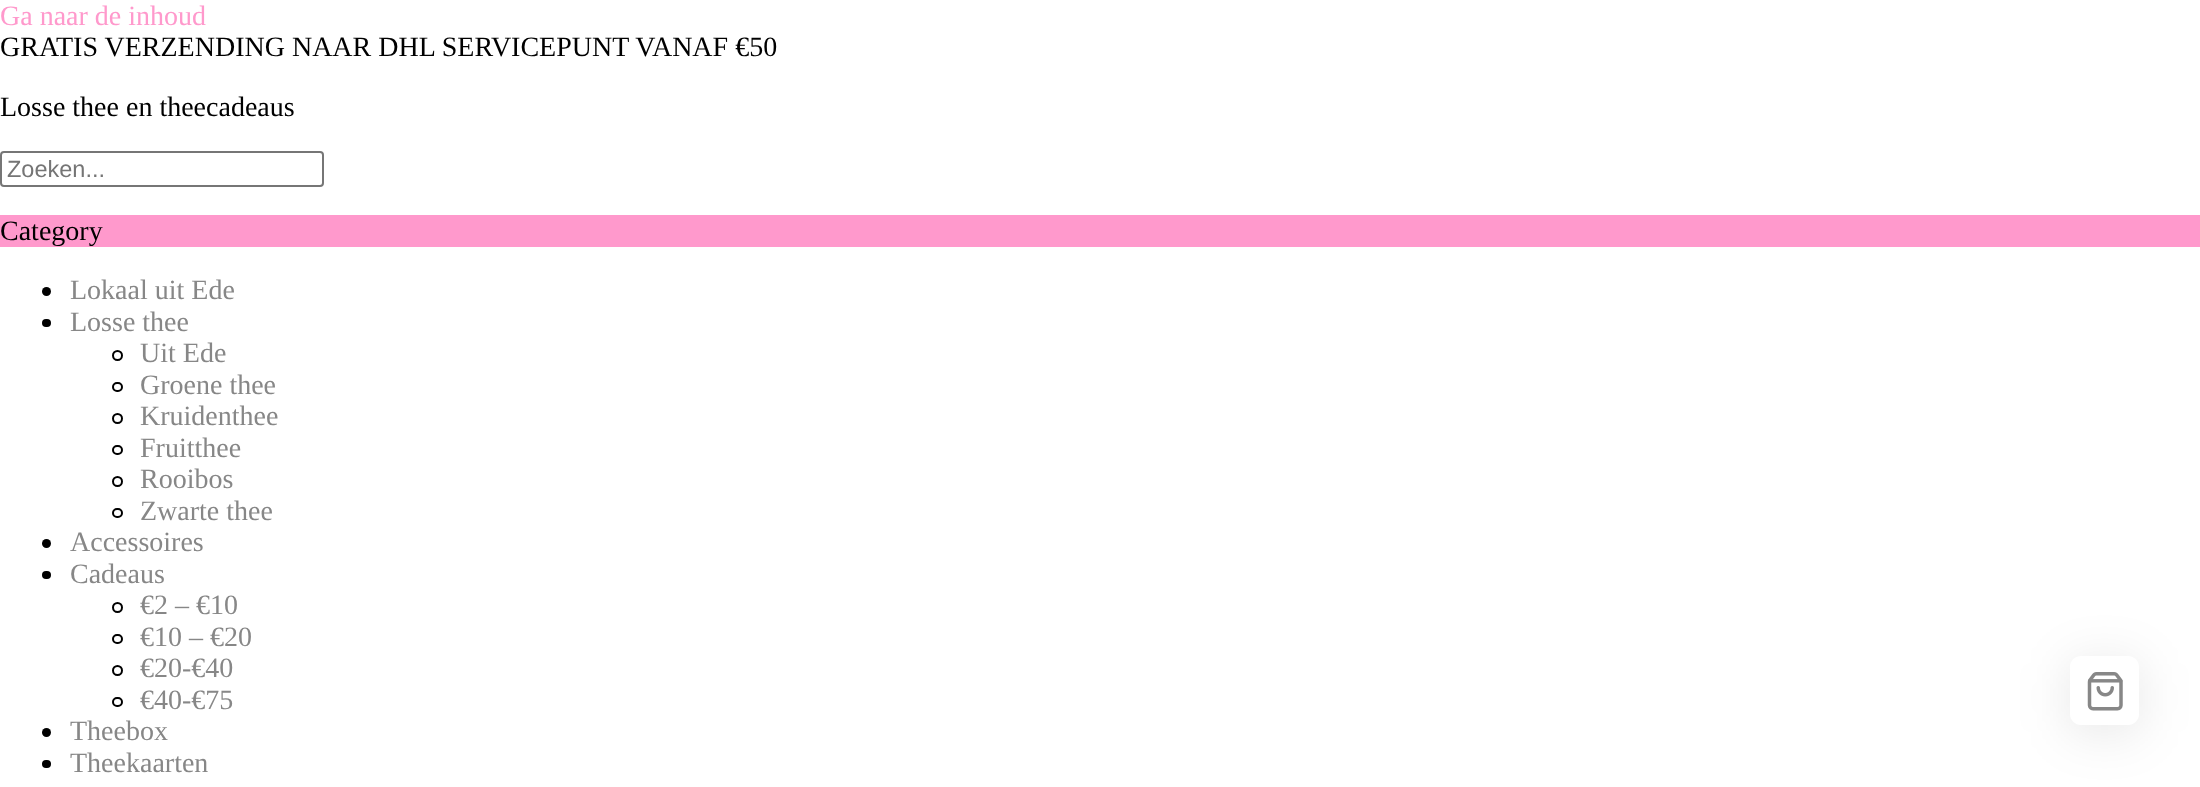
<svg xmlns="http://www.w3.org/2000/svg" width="2200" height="787">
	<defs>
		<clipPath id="clip1"><path d="M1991 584H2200V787H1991ZM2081 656H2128C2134 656 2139 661 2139 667V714C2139 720 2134 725 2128 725H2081C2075 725 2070 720 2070 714V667C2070 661 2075 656 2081 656Z" clip-rule="evenodd" /></clipPath>
	</defs>
	<rect width="100%" height="100%" fill="#FFFFFF" />
	<text x="0" y="25" font-family="Liberation Serif" font-size="28" fill="#FF99CC">Ga naar de inhoud</text>
	<g font-family="Liberation Serif" font-size="28" fill="#000000">
		<text x="0" y="56">GRATIS VERZENDING NAAR DHL SERVICEPUNT VANAF €50</text>
		<text x="0" y="116">Losse thee en theecadeaus</text>
	</g>
	<rect x="1" y="152" width="322" height="34" rx="3" fill="none" stroke="#767676" stroke-width="2" />
	<text x="7" y="177" font-family="Liberation Sans" font-size="23.5" fill="#757575">Zoeken...</text>
	<rect x="0" y="215" width="2200" height="32" fill="#FF99CC" />
	<text x="0" y="240" font-family="Liberation Serif" font-size="28" fill="#000000">Category</text>
	<circle cx="46.5" cy="291.5" r="4.5" fill="#000000" />
	<text x="70" y="299" font-family="Liberation Serif" font-size="28" fill="#878787">Lokaal uit Ede</text>
	<rect x="42" y="319" width="9" height="8" rx="4" fill="#000000" />
	<text x="70" y="331" font-family="Liberation Serif" font-size="28" fill="#878787">Losse thee</text>
	<circle cx="117.5" cy="355.5" r="4.5" fill="none" stroke="#000000" stroke-width="2" />
	<text x="140" y="362" font-family="Liberation Serif" font-size="28" fill="#878787">Uit Ede</text>
	<rect x="113" y="383" width="9" height="8" rx="4" fill="none" stroke="#000000" stroke-width="2" />
	<text x="140" y="394" font-family="Liberation Serif" font-size="28" fill="#878787">Groene thee</text>
	<circle cx="117.5" cy="418.5" r="4.5" fill="none" stroke="#000000" stroke-width="2" />
	<text x="140" y="425" font-family="Liberation Serif" font-size="28" fill="#878787">Kruidenthee</text>
	<rect x="113" y="446" width="9" height="8" rx="4" fill="none" stroke="#000000" stroke-width="2" />
	<text x="140" y="457" font-family="Liberation Serif" font-size="28" fill="#878787">Fruitthee</text>
	<circle cx="117.5" cy="481.5" r="4.5" fill="none" stroke="#000000" stroke-width="2" />
	<text x="140" y="488" font-family="Liberation Serif" font-size="28" fill="#878787">Rooibos</text>
	<rect x="113" y="509" width="9" height="8" rx="4" fill="none" stroke="#000000" stroke-width="2" />
	<text x="140" y="520" font-family="Liberation Serif" font-size="28" fill="#878787">Zwarte thee</text>
	<circle cx="46.5" cy="543.5" r="4.5" fill="#000000" />
	<text x="70" y="551" font-family="Liberation Serif" font-size="28" fill="#878787">Accessoires</text>
	<rect x="42" y="571" width="9" height="8" rx="4" fill="#000000" />
	<text x="70" y="583" font-family="Liberation Serif" font-size="28" fill="#878787">Cadeaus</text>
	<circle cx="117.5" cy="607.5" r="4.5" fill="none" stroke="#000000" stroke-width="2" />
	<text x="140" y="614" font-family="Liberation Serif" font-size="28" fill="#878787">€2 – €10</text>
	<rect x="113" y="635" width="9" height="8" rx="4" fill="none" stroke="#000000" stroke-width="2" />
	<text x="140" y="646" font-family="Liberation Serif" font-size="28" fill="#878787">€10 – €20</text>
	<circle cx="117.5" cy="670.5" r="4.5" fill="none" stroke="#000000" stroke-width="2" />
	<text x="140" y="677" font-family="Liberation Serif" font-size="28" fill="#878787">€20-€40</text>
	<rect x="113" y="698" width="9" height="8" rx="4" fill="none" stroke="#000000" stroke-width="2" />
	<text x="140" y="709" font-family="Liberation Serif" font-size="28" fill="#878787">€40-€75</text>
	<circle cx="46.5" cy="732.5" r="4.5" fill="#000000" />
	<text x="70" y="740" font-family="Liberation Serif" font-size="28" fill="#878787">Theebox</text>
	<rect x="42" y="760" width="9" height="8" rx="4" fill="#000000" />
	<text x="70" y="772" font-family="Liberation Serif" font-size="28" fill="#878787">Theekaarten</text>
	<g clip-path="url(#clip1)">
		<rect x="2070" y="663" width="69" height="69" rx="11" fill="#000000" fill-opacity="0.1" filter="blur(26px)" />
	</g>
	<image x="2087" y="672" width="36" height="39" href="assets/img1.png" />
</svg>
